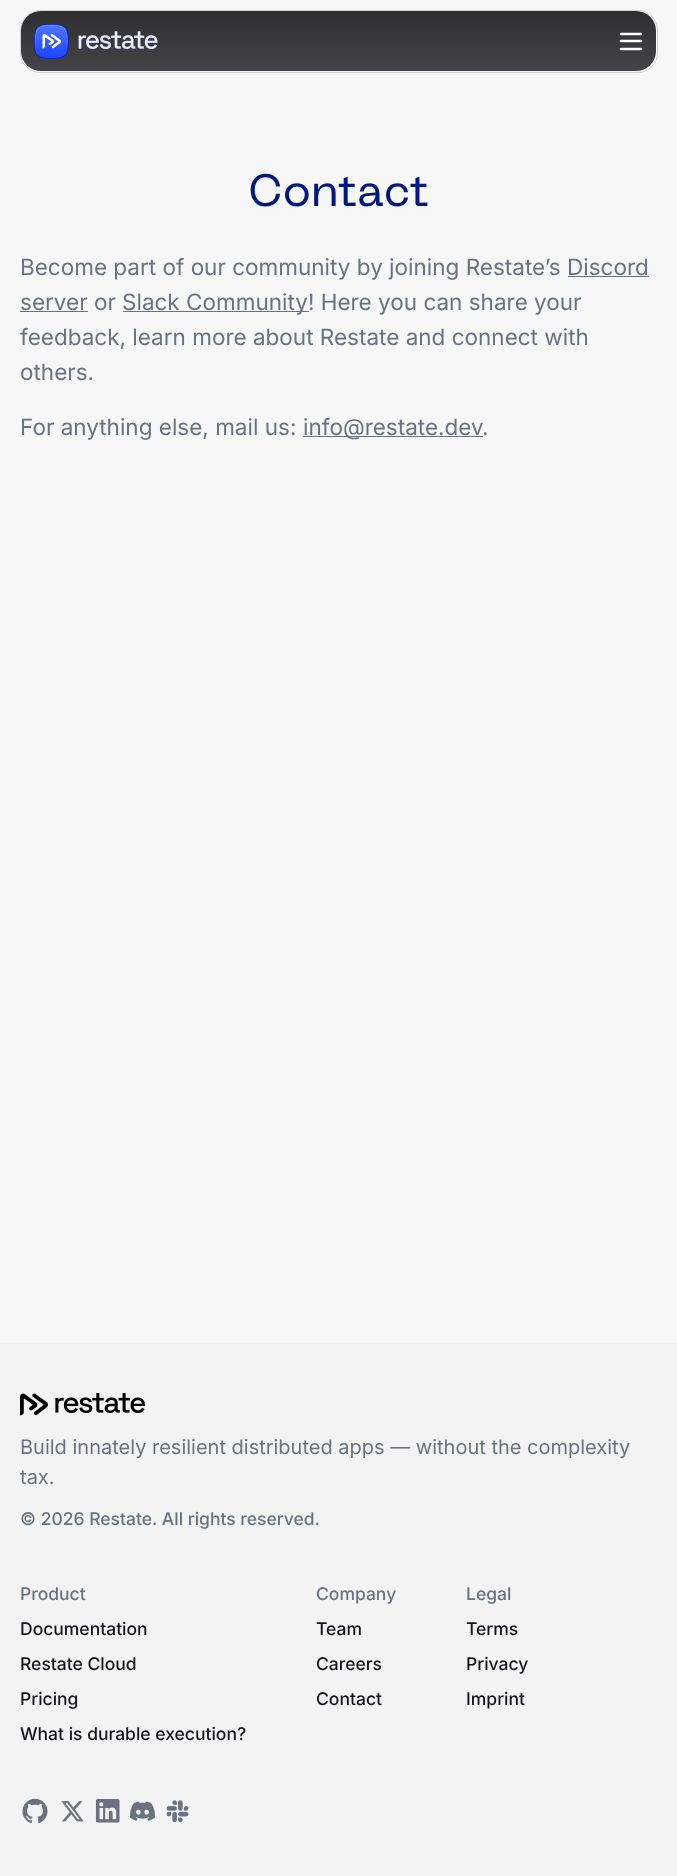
<svg xmlns="http://www.w3.org/2000/svg" width="677" height="1876">
	<defs>
		<linearGradient id="g1" gradientUnits="userSpaceOnUse" x1="339" y1="11" x2="339" y2="71"><stop offset="0" stop-color="#18181B" stop-opacity="0.9" /><stop offset="1" stop-color="#18181B" stop-opacity="0.8" /></linearGradient>
	</defs>
	<rect width="100%" height="100%" fill="#F7F7F8" />
	<rect x="20.5" y="10.5" width="637" height="62" rx="19.5" fill="none" stroke="#D2D2D3" />
	<rect x="21" y="11" width="635" height="60" rx="20" fill="url(#g1)" />
	<image x="33" y="23" width="125" height="36" href="assets/img1.png" />
	<path d="M621 41H641M621 34H641M621 49H641" fill="none" stroke="#FFFFFF" stroke-width="2.5" stroke-linecap="round" stroke-linejoin="round" />
	<text x="248" y="206" font-family="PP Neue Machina" font-size="45" fill="#001880">Contact</text>
	<g font-family="Inter" font-size="22.5" fill="#6A7282">
		<text x="20" y="275">Become part of our community by joining Restate’s Discord</text>
		<text x="20" y="310">server or</text>
	</g>
	<rect x="568" y="276" width="81" height="1" fill="#6A7282" />
	<rect x="20" y="311" width="68" height="1" fill="#6A7282" />
	<rect x="123" y="311" width="186" height="1" fill="#6A7282" />
	<g font-family="Inter" font-size="22.5" fill="#6A7282">
		<text x="122" y="310">Slack Community! Here you can share your</text>
		<text x="20" y="345">feedback, learn more about Restate and connect with</text>
		<text x="20" y="380">others.</text>
		<text x="20" y="435">For anything else, mail us:</text>
	</g>
	<rect x="303" y="436" width="180" height="1" fill="#6A7282" />
	<g font-family="Inter" font-size="22.5" fill="#6A7282">
		<text x="303" y="435">info@restate.dev</text>
		<text x="482" y="435">.</text>
	</g>
	<rect x="0" y="1343" width="677" height="533" fill="#F3F3F3" />
	<image x="20" y="1393" width="125" height="23" href="assets/img2.png" />
	<g font-family="Inter" font-size="20" fill="#6A7282">
		<text x="20" y="1454">Build innately resilient distributed apps — without the complexity</text>
		<text x="20" y="1484">tax.</text>
	</g>
	<g font-family="Inter" font-size="17.5" font-weight="500" fill="#6A7282">
		<text x="20" y="1525">© 2026 Restate. All rights reserved.</text>
		<text x="20" y="1600">Product</text>
	</g>
	<g font-family="Inter" font-size="17.5" font-weight="500" fill="#14151A">
		<text x="20" y="1635">Documentation</text>
		<text x="20" y="1670">Restate Cloud</text>
		<text x="20" y="1705">Pricing</text>
		<text x="20" y="1740">What is durable execution?</text>
	</g>
	<text x="316" y="1600" font-family="Inter" font-size="17.5" font-weight="500" fill="#6A7282">Company</text>
	<g font-family="Inter" font-size="17.5" font-weight="500" fill="#14151A">
		<text x="316" y="1635">Team</text>
		<text x="316" y="1670">Careers</text>
		<text x="316" y="1705">Contact</text>
	</g>
	<text x="466" y="1600" font-family="Inter" font-size="17.5" font-weight="500" fill="#6A7282">Legal</text>
	<g font-family="Inter" font-size="17.5" font-weight="500" fill="#14151A">
		<text x="466" y="1635">Terms</text>
		<text x="466" y="1670">Privacy</text>
		<text x="466" y="1705">Imprint</text>
	</g>
	<image x="22" y="1798" width="26" height="26" href="assets/img3.png" />
	<image x="61" y="1801" width="23" height="21" href="assets/img4.png" />
	<image x="95" y="1799" width="25" height="24" href="assets/img5.png" />
	<image x="130" y="1801" width="25" height="20" href="assets/img6.png" />
	<image x="166" y="1800" width="23" height="23" href="assets/img7.png" />
</svg>
